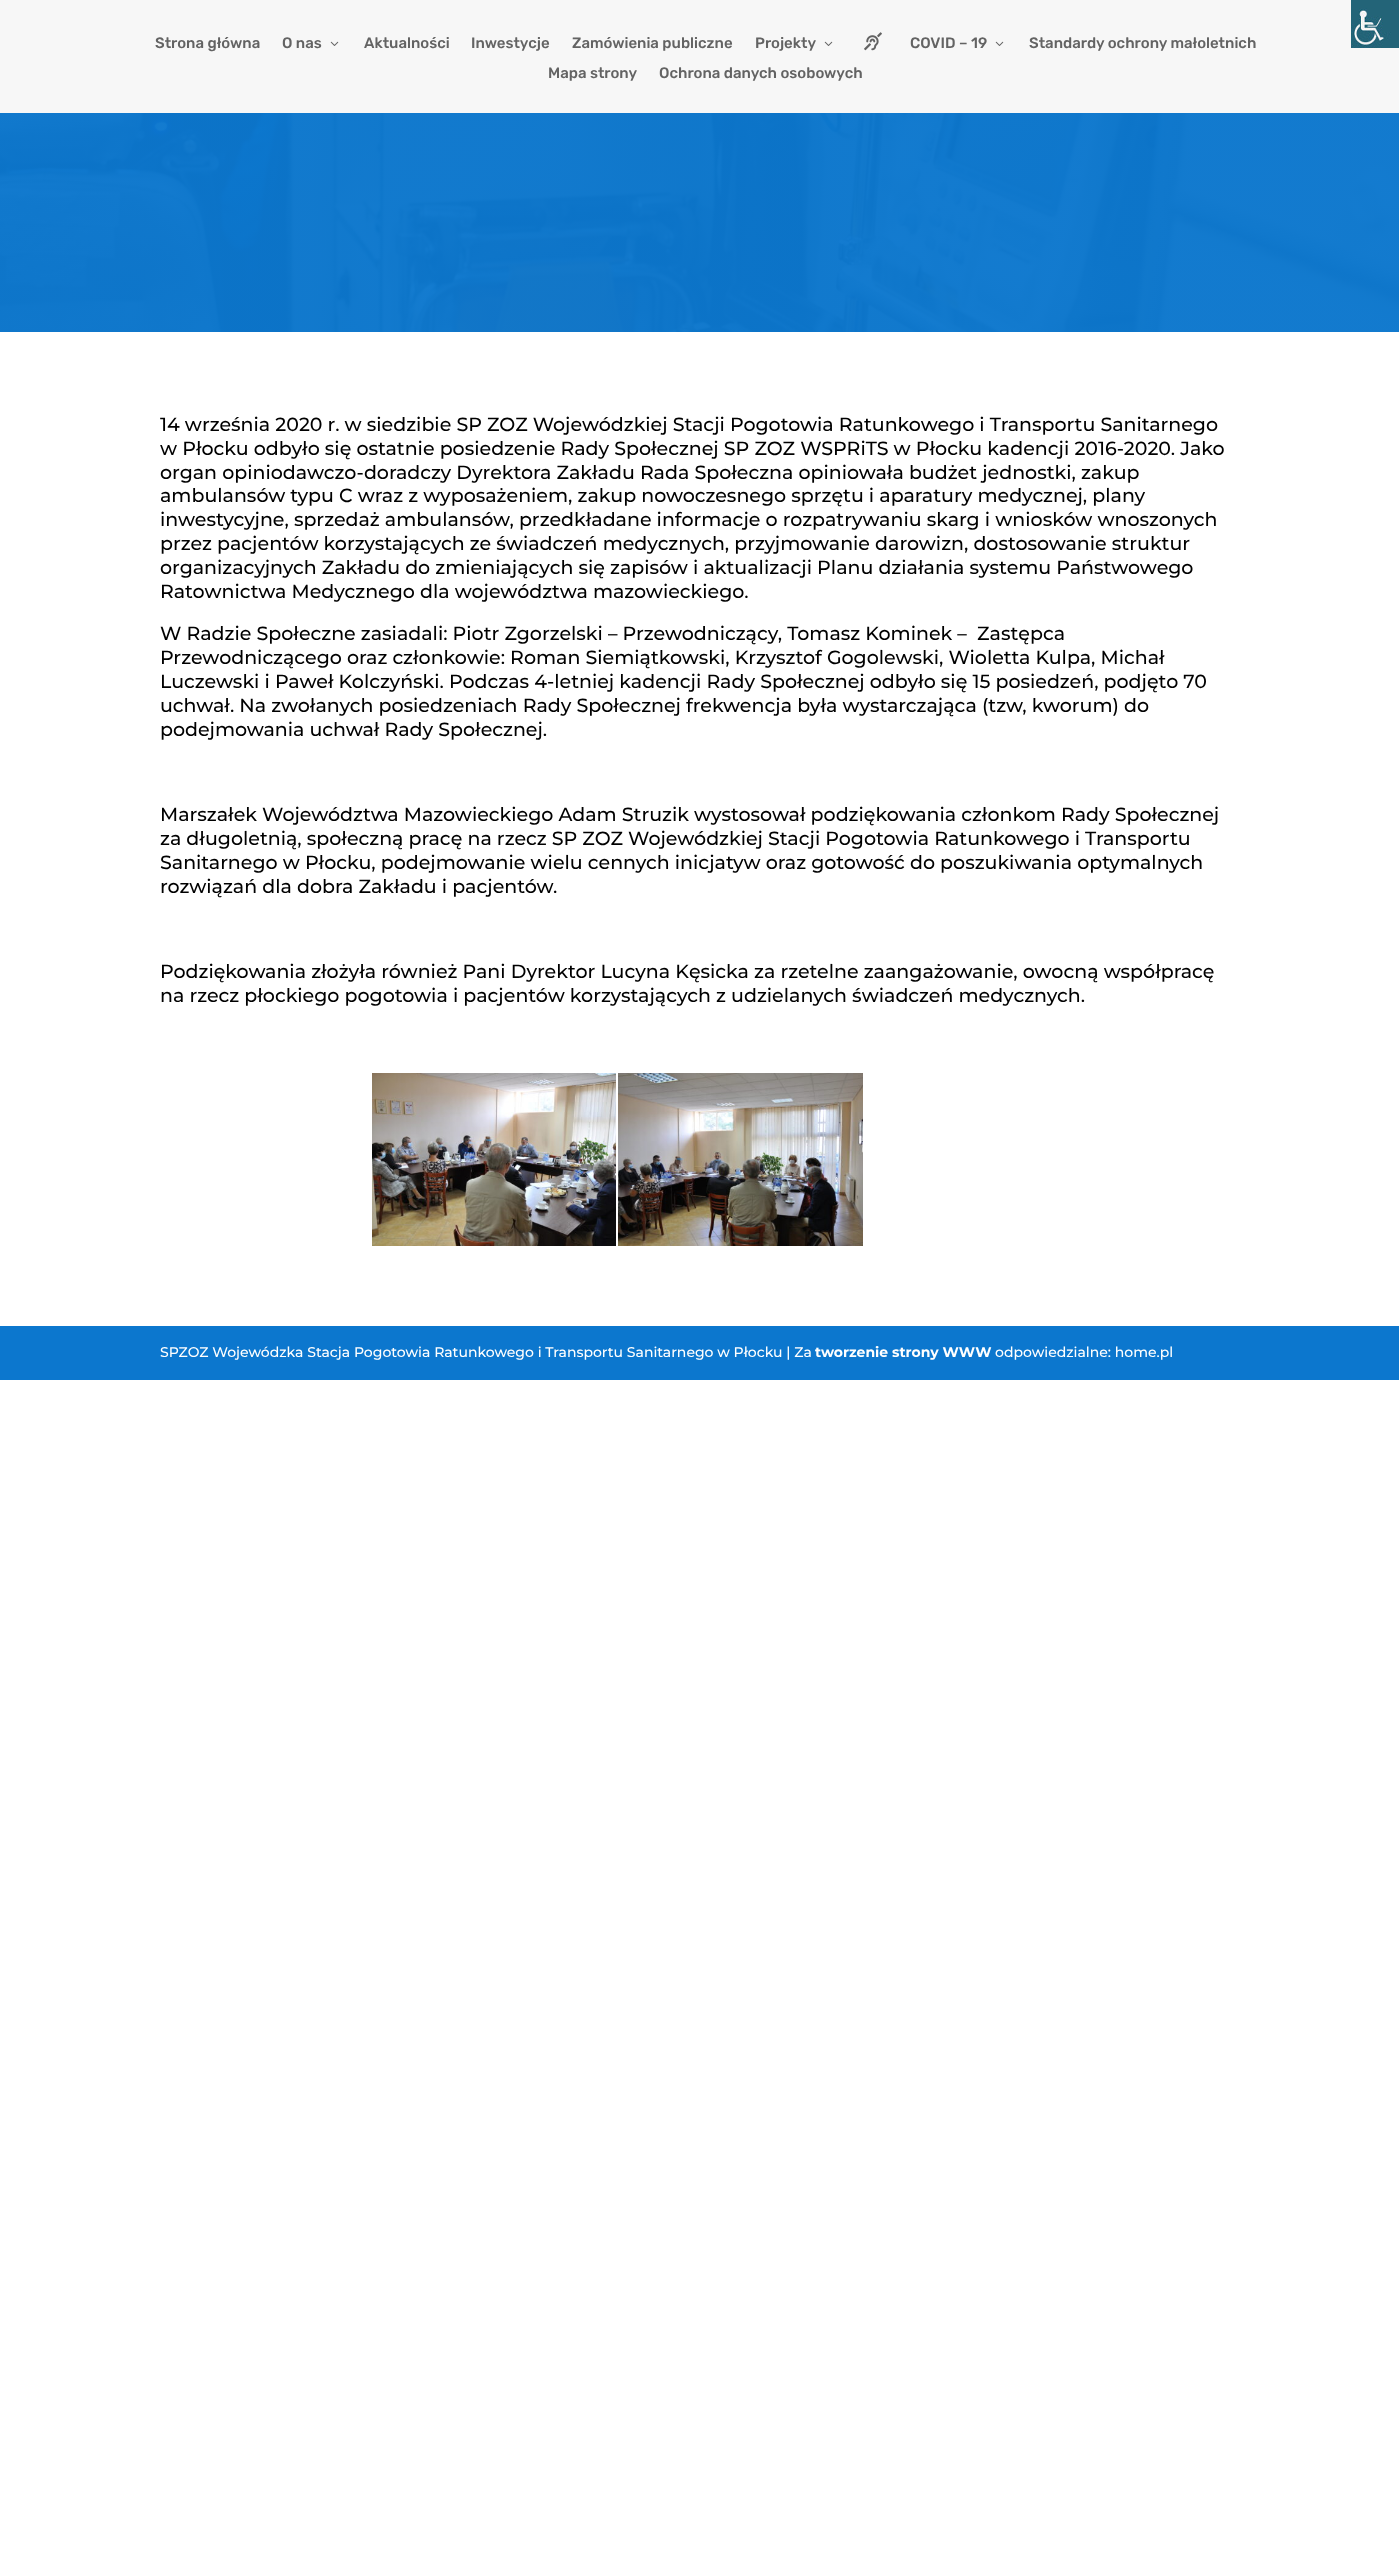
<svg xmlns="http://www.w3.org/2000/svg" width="1399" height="2554">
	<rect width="100%" height="100%" fill="#FFFFFF" />
	<rect x="0" y="0" width="1399" height="113" fill="#F7F7F7" />
	<image x="1351" y="0" width="48" height="48" href="assets/img1.png" />
	<g font-family="Rubik" font-size="15" font-weight="500" fill="#636363">
		<text x="155" y="48">Strona główna</text>
		<text x="282" y="48">O nas</text>
	</g>
	<image x="330" y="41" width="9" height="5" href="assets/img2.png" />
	<g font-family="Rubik" font-size="15" font-weight="500" fill="#636363">
		<text x="364" y="48">Aktualności</text>
		<text x="471" y="48">Inwestycje</text>
		<text x="572" y="48">Zamówienia publiczne</text>
		<text x="755" y="48">Projekty</text>
	</g>
	<image x="824" y="41" width="9" height="5" href="assets/img2.png" />
	<image x="864" y="32" width="18" height="19" href="assets/img3.png" />
	<text x="910" y="48" font-family="Rubik" font-size="15" font-weight="500" fill="#636363">COVID – 19</text>
	<image x="995" y="41" width="9" height="5" href="assets/img2.png" />
	<g font-family="Rubik" font-size="15" font-weight="500" fill="#636363">
		<text x="1029" y="48">Standardy ochrony małoletnich</text>
		<text x="548" y="78">Mapa strony</text>
		<text x="659" y="78">Ochrona danych osobowych</text>
	</g>
	<image x="0" y="113" width="1399" height="219" href="assets/img4.png" />
	<g font-family="Montserrat" font-size="19" font-weight="500" fill="#000000">
		<text x="160" y="431">14 września 2020 r. w siedzibie SP ZOZ Wojewódzkiej Stacji Pogotowia Ratunkowego i Transportu Sanitarnego</text>
		<text x="160" y="455">w Płocku odbyło się ostatnie posiedzenie Rady Społecznej SP ZOZ WSPRiTS w Płocku kadencji 2016-2020. Jako</text>
		<text x="160" y="479">organ opiniodawczo-doradczy Dyrektora Zakładu Rada Społeczna opiniowała budżet jednostki, zakup</text>
		<text x="160" y="502">ambulansów typu C wraz z wyposażeniem, zakup nowoczesnego sprzętu i aparatury medycznej, plany</text>
		<text x="160" y="526">inwestycyjne, sprzedaż ambulansów, przedkładane informacje o rozpatrywaniu skarg i wniosków wnoszonych</text>
		<text x="160" y="550">przez pacjentów korzystających ze świadczeń medycznych, przyjmowanie darowizn, dostosowanie struktur</text>
		<text x="160" y="574">organizacyjnych Zakładu do zmieniających się zapisów i aktualizacji Planu działania systemu Państwowego</text>
		<text x="160" y="598">Ratownictwa Medycznego dla województwa mazowieckiego.</text>
		<text x="160" y="640" xml:space="preserve">W Radzie Społeczne zasiadali: Piotr Zgorzelski – Przewodniczący, Tomasz Kominek –  Zastępca</text>
		<text x="160" y="664">Przewodniczącego oraz członkowie: Roman Siemiątkowski, Krzysztof Gogolewski, Wioletta Kulpa, Michał</text>
		<text x="160" y="688">Luczewski i Paweł Kolczyński. Podczas 4-letniej kadencji Rady Społecznej odbyło się 15 posiedzeń, podjęto 70</text>
		<text x="160" y="712">uchwał. Na zwołanych posiedzeniach Rady Społecznej frekwencja była wystarczająca (tzw, kworum) do</text>
		<text x="160" y="736">podejmowania uchwał Rady Społecznej.</text>
		<text x="160" y="821">Marszałek Województwa Mazowieckiego Adam Struzik wystosował podziękowania członkom Rady Społecznej</text>
		<text x="160" y="845">za długoletnią, społeczną pracę na rzecz SP ZOZ Wojewódzkiej Stacji Pogotowia Ratunkowego i Transportu</text>
		<text x="160" y="869">Sanitarnego w Płocku, podejmowanie wielu cennych inicjatyw oraz gotowość do poszukiwania optymalnych</text>
		<text x="160" y="893">rozwiązań dla dobra Zakładu i pacjentów.</text>
		<text x="160" y="978">Podziękowania złożyła również Pani Dyrektor Lucyna Kęsicka za rzetelne zaangażowanie, owocną współpracę</text>
		<text x="160" y="1002">na rzecz płockiego pogotowia i pacjentów korzystających z udzielanych świadczeń medycznych.</text>
	</g>
	<image x="372" y="1073" width="244" height="173" href="assets/img5.png" />
	<image x="618" y="1073" width="245" height="173" href="assets/img6.png" />
	<rect x="0" y="1326" width="1399" height="54" fill="#0C77CE" />
	<text x="160" y="1357" font-family="Montserrat" font-size="14" font-weight="500" fill="#FFFFFF">SPZOZ Wojewódzka Stacja Pogotowia Ratunkowego i Transportu Sanitarnego w Płocku | Za</text>
	<text x="815" y="1357" font-family="Montserrat" font-size="14" font-weight="700" fill="#FFFFFF">tworzenie strony WWW</text>
	<text x="995" y="1357" font-family="Montserrat" font-size="14" font-weight="500" fill="#FFFFFF">odpowiedzialne: home.pl</text>
</svg>
